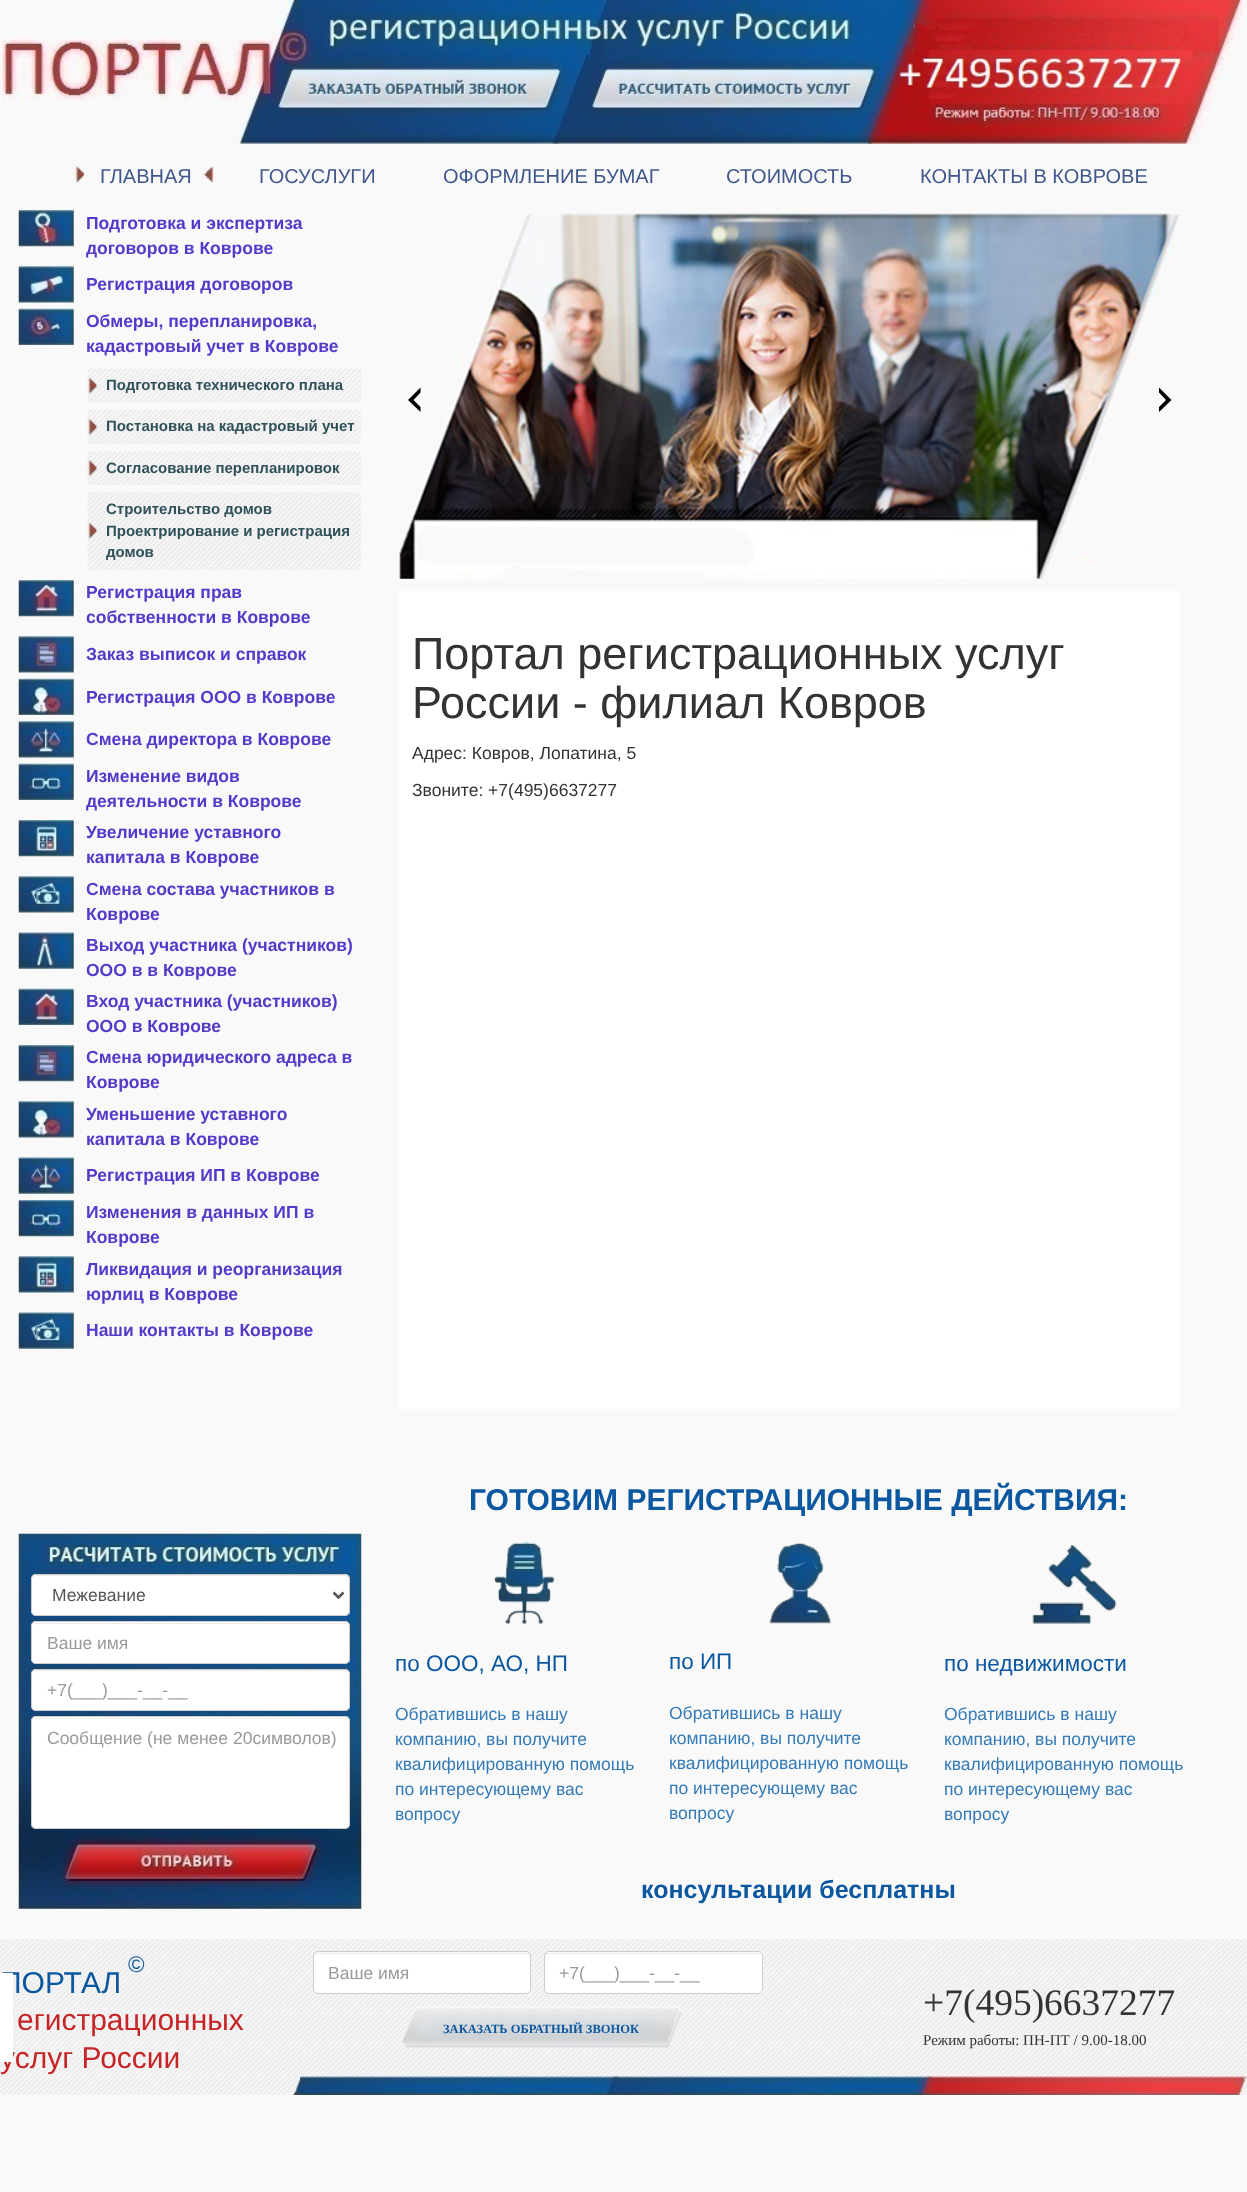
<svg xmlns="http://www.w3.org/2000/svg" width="1247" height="2192">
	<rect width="100%" height="100%" fill="#F9F9F9" />
	<image x="2" y="0" width="1243" height="144" href="assets/img1.png" />
	<image x="75" y="166" width="10" height="17" href="assets/img2.png" />
	<text x="100" y="183" font-family="Liberation Sans" font-size="20" fill="#40578B">ГЛАВНАЯ</text>
	<image x="203" y="166" width="11" height="17" href="assets/img3.png" />
	<g font-family="Liberation Sans" font-size="20" fill="#40578B">
		<text x="259" y="183">ГОСУСЛУГИ</text>
		<text x="443" y="183">ОФОРМЛЕНИЕ БУМАГ</text>
		<text x="726" y="183">СТОИМОСТЬ</text>
		<text x="920" y="183">КОНТАКТЫ В КОВРОВЕ</text>
	</g>
	<image x="18" y="210" width="56" height="37" href="assets/img4.png" />
	<g font-family="Liberation Sans" font-size="17.5" font-weight="700" fill="#5539CA">
		<text x="86" y="229">Подготовка и экспертиза</text>
		<text x="86" y="254">договоров в Коврове</text>
	</g>
	<image x="18" y="266" width="56" height="37" href="assets/img5.png" />
	<text x="86" y="290" font-family="Liberation Sans" font-size="17.5" font-weight="700" fill="#5539CA">Регистрация договоров</text>
	<image x="18" y="308" width="56" height="37" href="assets/img6.png" />
	<g font-family="Liberation Sans" font-size="17.5" font-weight="700" fill="#5539CA">
		<text x="86" y="327">Обмеры, перепланировка,</text>
		<text x="86" y="352">кадастровый учет в Коврове</text>
	</g>
	<image x="87" y="368" width="274" height="35" href="assets/img7.png" />
	<image x="87" y="377" width="11" height="17" href="assets/img8.png" />
	<text x="106" y="390" font-family="Liberation Sans" font-size="15" font-weight="700" fill="#30515A">Подготовка технического плана</text>
	<image x="87" y="410" width="274" height="34" href="assets/img9.png" />
	<image x="87" y="418" width="11" height="17" href="assets/img10.png" />
	<text x="106" y="431" font-family="Liberation Sans" font-size="15" font-weight="700" fill="#30515A">Постановка на кадастровый учет</text>
	<image x="87" y="451" width="274" height="34" href="assets/img11.png" />
	<image x="87" y="460" width="11" height="17" href="assets/img12.png" />
	<text x="106" y="473" font-family="Liberation Sans" font-size="15" font-weight="700" fill="#30515A">Согласование перепланировок</text>
	<image x="87" y="492" width="274" height="78" href="assets/img13.png" />
	<image x="87" y="522" width="11" height="17" href="assets/img14.png" />
	<g font-family="Liberation Sans" font-size="15" font-weight="700" fill="#30515A">
		<text x="106" y="514">Строительство домов</text>
		<text x="106" y="536">Проектрирование и регистрация</text>
		<text x="106" y="557">домов</text>
	</g>
	<image x="18" y="580" width="56" height="37" href="assets/img15.png" />
	<g font-family="Liberation Sans" font-size="17.5" font-weight="700" fill="#5539CA">
		<text x="86" y="598">Регистрация прав</text>
		<text x="86" y="623">собственности в Коврове</text>
	</g>
	<image x="18" y="636" width="56" height="37" href="assets/img16.png" />
	<text x="86" y="660" font-family="Liberation Sans" font-size="17.5" font-weight="700" fill="#5539CA">Заказ выписок и справок</text>
	<image x="18" y="678" width="56" height="37" href="assets/img17.png" />
	<text x="86" y="703" font-family="Liberation Sans" font-size="17.5" font-weight="700" fill="#5539CA">Регистрация ООО в Коврове</text>
	<image x="18" y="721" width="56" height="37" href="assets/img18.png" />
	<text x="86" y="745" font-family="Liberation Sans" font-size="17.5" font-weight="700" fill="#5539CA">Смена директора в Коврове</text>
	<image x="18" y="763" width="56" height="37" href="assets/img19.png" />
	<g font-family="Liberation Sans" font-size="17.5" font-weight="700" fill="#5539CA">
		<text x="86" y="782">Изменение видов</text>
		<text x="86" y="807">деятельности в Коврове</text>
	</g>
	<image x="18" y="820" width="56" height="37" href="assets/img20.png" />
	<g font-family="Liberation Sans" font-size="17.5" font-weight="700" fill="#5539CA">
		<text x="86" y="838">Увеличение уставного</text>
		<text x="86" y="863">капитала в Коврове</text>
	</g>
	<image x="18" y="876" width="56" height="37" href="assets/img21.png" />
	<g font-family="Liberation Sans" font-size="17.5" font-weight="700" fill="#5539CA">
		<text x="86" y="895">Смена состава участников в</text>
		<text x="86" y="920">Коврове</text>
	</g>
	<image x="18" y="932" width="56" height="37" href="assets/img22.png" />
	<g font-family="Liberation Sans" font-size="17.5" font-weight="700" fill="#5539CA">
		<text x="86" y="951">Выход участника (участников)</text>
		<text x="86" y="976">ООО в в Коврове</text>
	</g>
	<image x="18" y="988" width="56" height="37" href="assets/img23.png" />
	<g font-family="Liberation Sans" font-size="17.5" font-weight="700" fill="#5539CA">
		<text x="86" y="1007">Вход участника (участников)</text>
		<text x="86" y="1032">ООО в Коврове</text>
	</g>
	<image x="18" y="1045" width="56" height="37" href="assets/img24.png" />
	<g font-family="Liberation Sans" font-size="17.5" font-weight="700" fill="#5539CA">
		<text x="86" y="1063">Смена юридического адреса в</text>
		<text x="86" y="1088">Коврове</text>
	</g>
	<image x="18" y="1101" width="56" height="37" href="assets/img25.png" />
	<g font-family="Liberation Sans" font-size="17.5" font-weight="700" fill="#5539CA">
		<text x="86" y="1120">Уменьшение уставного</text>
		<text x="86" y="1145">капитала в Коврове</text>
	</g>
	<image x="18" y="1157" width="56" height="37" href="assets/img26.png" />
	<text x="86" y="1181" font-family="Liberation Sans" font-size="17.5" font-weight="700" fill="#5539CA">Регистрация ИП в Коврове</text>
	<image x="18" y="1200" width="56" height="37" href="assets/img27.png" />
	<g font-family="Liberation Sans" font-size="17.5" font-weight="700" fill="#5539CA">
		<text x="86" y="1218">Изменения в данных ИП в</text>
		<text x="86" y="1243">Коврове</text>
	</g>
	<image x="18" y="1256" width="56" height="37" href="assets/img28.png" />
	<g font-family="Liberation Sans" font-size="17.5" font-weight="700" fill="#5539CA">
		<text x="86" y="1275">Ликвидация и реорганизация</text>
		<text x="86" y="1300">юрлиц в Коврове</text>
	</g>
	<image x="18" y="1312" width="56" height="37" href="assets/img29.png" />
	<text x="86" y="1336" font-family="Liberation Sans" font-size="17.5" font-weight="700" fill="#5539CA">Наши контакты в Коврове</text>
	<image x="399" y="213" width="781" height="366" href="assets/img30.png" />
	<path d="M420.5 412L408 400H413.5L420.5 407ZM408 400L420.5 387.5V392.5L413.5 400Z" fill="#000000" />
	<path d="M1159 387.5L1171.5 400H1166L1159 392.5ZM1171.5 400L1159 412V407L1166 400Z" fill="#000000" />
	<rect x="399" y="591" width="781" height="818" fill="#FFFFFF" />
	<g font-family="Liberation Sans" font-size="45" fill="#333333">
		<text x="412" y="669">Портал регистрационных услуг</text>
		<text x="412" y="718">России - филиал Ковров</text>
	</g>
	<g font-family="Liberation Sans" font-size="17.5" fill="#333333">
		<text x="412" y="759">Адрес: Ковров, Лопатина, 5</text>
		<text x="412" y="796">Звоните: +7(495)6637277</text>
	</g>
	<image x="18" y="1533" width="344" height="376" href="assets/img31.png" />
	<rect x="31" y="1574" width="319" height="42" rx="5" fill="#FFFFFF" />
	<path d="M36 1576H345C347 1576 349 1578 349 1580V1579C349 1577 347 1575 345 1575H37C36 1575 34 1576 34 1577Z" fill="#ECECEC" />
	<rect x="31.5" y="1574.5" width="318" height="41" rx="4.5" fill="none" stroke="#CCCCCC" />
	<path d="M333.5 1592.5L338.5 1597.5L343.5 1592.5" fill="none" stroke="#555555" stroke-width="2.5" />
	<text x="52" y="1601" font-family="Liberation Sans" font-size="17.5" fill="#555555">Межевание</text>
	<rect x="31" y="1621" width="319" height="43" rx="5" fill="#FFFFFF" />
	<path d="M36 1624H345C347 1624 349 1625 349 1628C349 1625 348 1623 345 1623H37L34 1624Z" fill="#ECECEC" />
	<rect x="31.5" y="1621.5" width="318" height="42" rx="4.5" fill="none" stroke="#CCCCCC" />
	<text x="47" y="1649" font-family="Liberation Sans" font-size="17.5" fill="#999999">Ваше имя</text>
	<rect x="31" y="1669" width="319" height="42" rx="5" fill="#FFFFFF" />
	<path d="M36 1671H345C347 1671 349 1673 349 1675V1674C349 1672 347 1670 345 1670H37C36 1670 34 1671 34 1672Z" fill="#ECECEC" />
	<rect x="31.5" y="1669.5" width="318" height="41" rx="4.5" fill="none" stroke="#CCCCCC" />
	<text x="47" y="1696" font-family="Liberation Sans" font-size="17.5" fill="#999999">+7(___)___-__-__</text>
	<rect x="31" y="1716" width="319" height="113" rx="5" fill="#FFFFFF" />
	<path d="M36 1719H345C347 1719 349 1720 349 1722C349 1720 347 1718 345 1718H37C36 1718 35 1719 34 1719Z" fill="#ECECEC" />
	<rect x="31.5" y="1716.5" width="318" height="112" rx="4.5" fill="none" stroke="#CCCCCC" />
	<text x="47" y="1744" font-family="Liberation Sans" font-size="17.5" fill="#999999">Сообщение (не менее 20символов)</text>
	<text x="469" y="1510" font-family="Liberation Sans" font-size="30" font-weight="700" fill="#0B58A0">ГОТОВИМ РЕГИСТРАЦИОННЫЕ ДЕЙСТВИЯ:</text>
	<image x="493" y="1541" width="62" height="83" href="assets/img32.png" />
	<text x="395" y="1671" font-family="Liberation Sans" font-size="22.5" fill="#0B58A0">по ООО, АО, НП</text>
	<g font-family="Liberation Sans" font-size="17.5" fill="#337AB7">
		<text x="395" y="1720">Обратившись в нашу</text>
		<text x="395" y="1745">компанию, вы получите</text>
		<text x="395" y="1770">квалифицированную помощь</text>
		<text x="395" y="1795">по интересующему вас</text>
		<text x="395" y="1820">вопросу</text>
	</g>
	<image x="769" y="1542" width="63" height="82" href="assets/img33.png" />
	<text x="669" y="1669" font-family="Liberation Sans" font-size="22.5" fill="#0B58A0">по ИП</text>
	<g font-family="Liberation Sans" font-size="17.5" fill="#337AB7">
		<text x="669" y="1719">Обратившись в нашу</text>
		<text x="669" y="1744">компанию, вы получите</text>
		<text x="669" y="1769">квалифицированную помощь</text>
		<text x="669" y="1794">по интересующему вас</text>
		<text x="669" y="1819">вопросу</text>
	</g>
	<image x="1032" y="1544" width="85" height="80" href="assets/img34.png" />
	<text x="944" y="1671" font-family="Liberation Sans" font-size="22.5" fill="#0B58A0">по недвижимости</text>
	<g font-family="Liberation Sans" font-size="17.5" fill="#337AB7">
		<text x="944" y="1720">Обратившись в нашу</text>
		<text x="944" y="1745">компанию, вы получите</text>
		<text x="944" y="1770">квалифицированную помощь</text>
		<text x="944" y="1795">по интересующему вас</text>
		<text x="944" y="1820">вопросу</text>
	</g>
	<text x="641" y="1898" font-family="Liberation Sans" font-size="25" font-weight="700" fill="#0B58A0">консультации бесплатны</text>
	<image x="0" y="1939" width="1247" height="156" href="assets/img35.png" />
	<image x="293" y="2076" width="954" height="19" href="assets/img36.png" />
	<text x="128" y="1972" font-family="Liberation Sans" font-size="22.5" fill="#0B58A0">©</text>
	<text x="0" y="1993" font-family="Liberation Sans" font-size="30" fill="#0B58A0">ПОРТАЛ</text>
	<g font-family="Liberation Sans" font-size="30" fill="#C72427">
		<text x="17" y="2030">егистрационных</text>
		<text x="0" y="2068">услуг России</text>
	</g>
	<rect x="313" y="1951" width="218" height="43" rx="5" fill="#FFFFFF" />
	<path d="M318 1954H526C528 1954 530 1955 530 1958C530 1955 529 1953 526 1953H316C314 1954 314 1956 314 1958C314 1955 315 1954 318 1954Z" fill="#ECECEC" />
	<rect x="313.5" y="1951.5" width="217" height="42" rx="4.5" fill="none" stroke="#CCCCCC" />
	<text x="328" y="1979" font-family="Liberation Sans" font-size="17.5" fill="#999999">Ваше имя</text>
	<rect x="544" y="1951" width="219" height="43" rx="5" fill="#FFFFFF" />
	<path d="M549 1954H758C760 1954 761 1955 761 1958C761 1955 760 1953 757 1953H547C545 1954 545 1956 545 1958C545 1955 547 1954 549 1954Z" fill="#ECECEC" />
	<rect x="544.5" y="1951.5" width="218" height="42" rx="4.5" fill="none" stroke="#CCCCCC" />
	<text x="559" y="1979" font-family="Liberation Sans" font-size="17.5" fill="#999999">+7(___)___-__-__</text>
	<image x="402" y="2006" width="280" height="42" href="assets/img37.png" />
	<text x="443" y="2033" font-family="Liberation Serif" font-size="12.5" font-weight="700" fill="#0B58A0">ЗАКАЗАТЬ ОБРАТНЫЙ ЗВОНОК</text>
	<text x="923" y="2015" font-family="Liberation Serif" font-size="37.5" fill="#333333">+7(495)6637277</text>
	<text x="923" y="2045" font-family="Liberation Serif" font-size="15" fill="#333333">Режим работы: ПН-ПТ / 9.00-18.00</text>
	<rect x="0" y="1973" width="13" height="89" fill="#FFFFFF" />
</svg>
